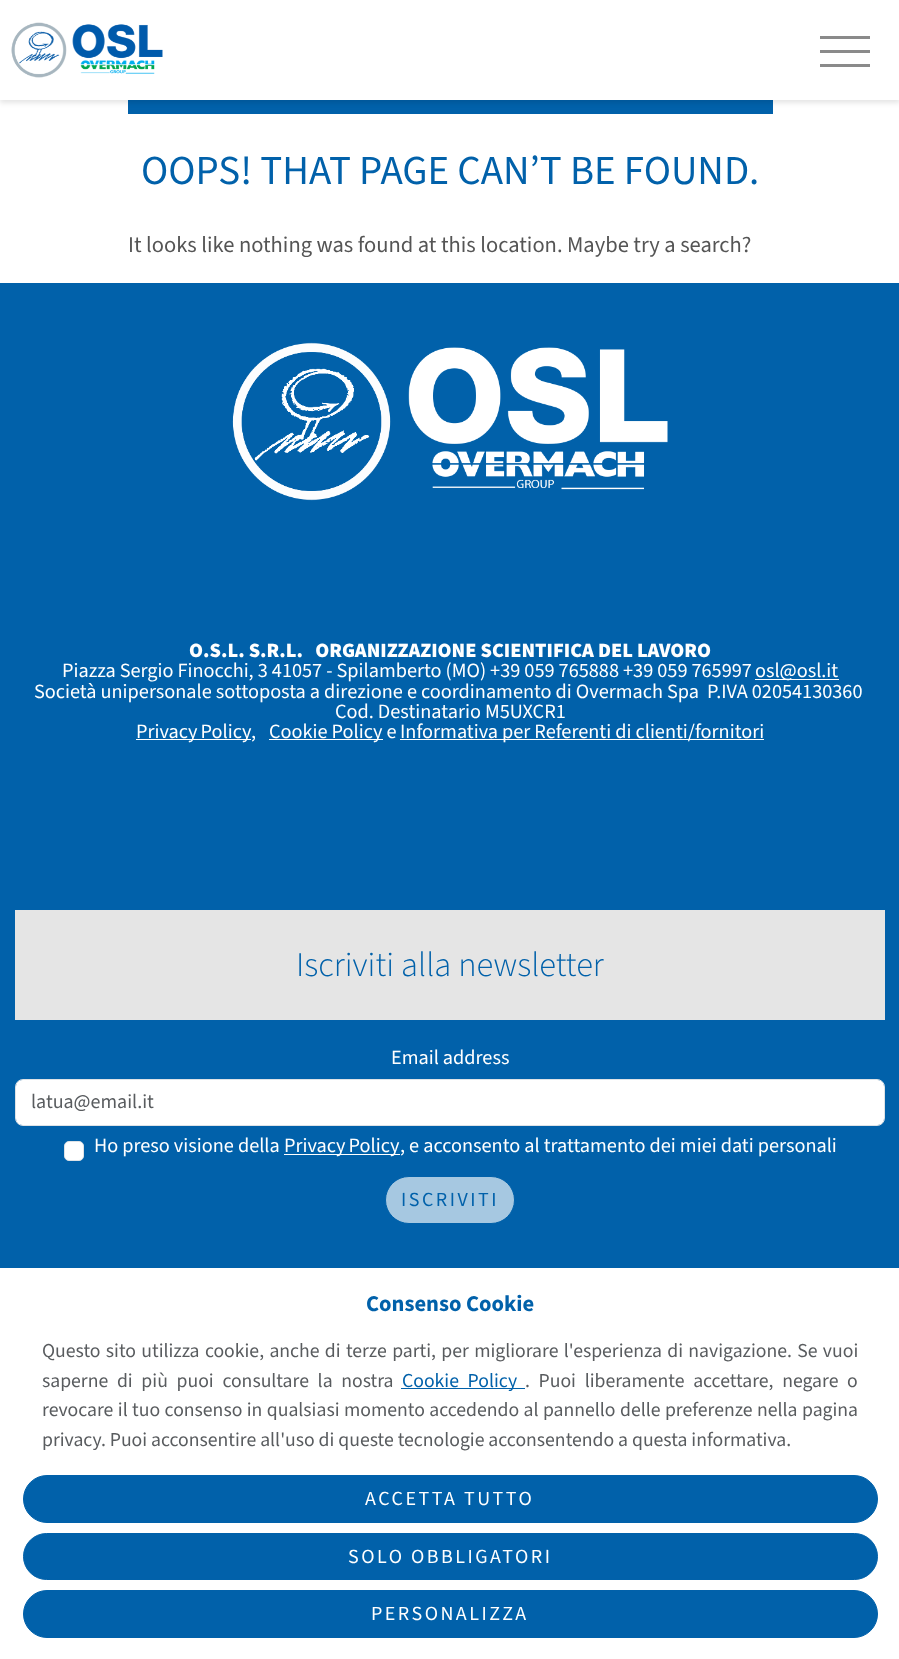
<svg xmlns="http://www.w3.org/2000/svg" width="899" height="1659">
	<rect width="100%" height="100%" fill="#FFFFFF" />
	<rect x="128" y="100" width="645" height="14" fill="#0161AA" />
	<rect x="0" y="3" width="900" height="100" fill="#000000" fill-opacity="0.1" filter="blur(2.5px)" />
	<rect x="0" y="0" width="899" height="100" fill="#FFFFFF" />
	<image x="11" y="22" width="152" height="56" href="assets/img1.png" />
	<rect x="820" y="36" width="50" height="3" fill="#8A8A8A" />
	<rect x="820" y="50" width="50" height="3" fill="#8A8A8A" />
	<rect x="820" y="64" width="50" height="3" fill="#8A8A8A" />
	<text x="141" y="184" font-family="'Source Sans 3'" font-size="41" font-weight="200" fill="#0161AA">OOPS! THAT PAGE CAN’T BE FOUND.</text>
	<text x="128" y="252" font-family="'Source Sans 3'" font-size="22.5" font-weight="200" fill="#555555">It looks like nothing was found at this location. Maybe try a search?</text>
	<rect x="0" y="283" width="899" height="985" fill="#0161AA" />
	<image x="232" y="342" width="436" height="159" href="assets/img2.png" />
	<text x="189" y="657" font-family="'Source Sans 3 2'" font-size="20.25" font-weight="200" fill="#FFFFFF" xml:space="preserve">O.S.L. S.R.L.   ORGANIZZAZIONE SCIENTIFICA DEL LAVORO</text>
	<text x="62" y="677" font-family="'Source Sans 3'" font-size="20.25" font-weight="200" fill="#FFFFFF">Piazza Sergio Finocchi, 3 41057 - Spilamberto (MO) +39 059 765888 +39 059 765997</text>
	<rect x="755" y="679" width="84" height="1" fill="#FFFFFF" />
	<g font-family="'Source Sans 3'" font-size="20.25" font-weight="200" fill="#FFFFFF">
		<text x="755" y="677">osl@osl.it</text>
		<text x="34" y="698">Società unipersonale sottoposta a direzione e coordinamento di Overmach Spa</text>
		<text x="707" y="698">P.IVA 02054130360</text>
		<text x="335" y="718">Cod. Destinatario M5UXCR1</text>
	</g>
	<rect x="136" y="739" width="115" height="1" fill="#FFFFFF" />
	<g font-family="'Source Sans 3'" font-size="20.25" font-weight="200" fill="#FFFFFF">
		<text x="136" y="738" word-spacing="-1">Privacy Policy</text>
		<text x="251" y="738">,</text>
	</g>
	<rect x="269" y="739" width="114" height="1" fill="#FFFFFF" />
	<text x="269" y="738" font-family="'Source Sans 3'" font-size="20.25" font-weight="200" fill="#FFFFFF">Cookie Policy e</text>
	<rect x="400" y="739" width="364" height="1" fill="#FFFFFF" />
	<text x="400" y="738" font-family="'Source Sans 3'" font-size="20.25" font-weight="200" fill="#FFFFFF">Informativa per Referenti di clienti/fornitori</text>
	<rect x="15" y="910" width="870" height="110" fill="#E5E5E5" />
	<text x="296" y="976" font-family="'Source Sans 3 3'" font-size="34.5" font-weight="200" fill="#0161AA">Iscriviti alla newsletter</text>
	<text x="391" y="1064" font-family="'Source Sans 3'" font-size="20.25" font-weight="200" fill="#FFFFFF">Email address</text>
	<rect x="16" y="1080" width="868" height="45" rx="6" fill="#FFFFFF" />
	<rect x="15.5" y="1079.5" width="869" height="46" rx="7.5" fill="none" stroke="#DEE2E6" />
	<text x="31" y="1108" font-family="'Source Sans 3'" font-size="20" font-weight="200" fill="#595C5F">latua@email.it</text>
	<rect x="64.5" y="1141.5" width="19" height="19" rx="4.5" fill="#FFFFFF" stroke="#DEE2E6" />
	<text x="94" y="1152" font-family="'Source Sans 3'" font-size="20.25" font-weight="200" fill="#FFFFFF">Ho preso visione della</text>
	<rect x="284" y="1154" width="116" height="1" fill="#FFFFFF" />
	<g font-family="'Source Sans 3'" font-size="20.25" font-weight="200" fill="#FFFFFF">
		<text x="284" y="1152" word-spacing="-1">Privacy Policy</text>
		<text x="400" y="1152">, e acconsento al trattamento dei miei dati personali</text>
	</g>
	<rect x="385.5" y="1176.5" width="129" height="47" rx="23.5" fill="#A6C8E1" stroke="#0161AA" />
	<text x="401" y="1206" font-family="'Source Sans 3'" font-size="20" font-weight="200" letter-spacing="2.5" fill="#0161AA">ISCRIVITI</text>
	<text x="366" y="1311" font-family="'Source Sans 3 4'" font-size="22.5" font-weight="200" fill="#0161AA">Consenso Cookie</text>
	<g font-family="'Source Sans 3'" font-size="19.7" font-weight="200" fill="#595C5F">
		<text x="42" y="1357" word-spacing="1.4">Questo sito utilizza cookie, anche di terze parti, per migliorare l'esperienza di navigazione. Se vuoi</text>
		<text x="42" y="1387" word-spacing="4.75">saperne di più puoi consultare la nostra</text>
	</g>
	<rect x="401" y="1388" width="124" height="1" fill="#0161AA" />
	<text x="402" y="1387" word-spacing="4.75" font-family="'Source Sans 3'" font-size="19.7" font-weight="200" fill="#0161AA">Cookie Policy</text>
	<g font-family="'Source Sans 3'" font-size="19.7" font-weight="200" fill="#595C5F">
		<text x="525" y="1387" word-spacing="4.75">. Puoi liberamente accettare, negare o</text>
		<text x="42" y="1416" word-spacing="0.5">revocare il tuo consenso in qualsiasi momento accedendo al pannello delle preferenze nella pagina</text>
		<text x="42" y="1446">privacy. Puoi acconsentire all'uso di queste tecnologie acconsentendo a questa informativa.</text>
	</g>
	<rect x="23.5" y="1475.5" width="854" height="47" rx="23.5" fill="#0161AA" stroke="#0161AA" />
	<text x="365" y="1505" font-family="'Source Sans 3'" font-size="20" font-weight="200" letter-spacing="2.5" fill="#FFFFFF">ACCETTA TUTTO</text>
	<rect x="23.5" y="1533.5" width="854" height="46" rx="23" fill="#0161AA" stroke="#0161AA" />
	<text x="348" y="1563" font-family="'Source Sans 3'" font-size="20" font-weight="200" letter-spacing="2.5" fill="#FFFFFF">SOLO OBBLIGATORI</text>
	<rect x="23.5" y="1590.5" width="854" height="47" rx="23.5" fill="#0161AA" stroke="#0161AA" />
	<text x="371" y="1620" font-family="'Source Sans 3'" font-size="20" font-weight="200" letter-spacing="2.5" fill="#FFFFFF">PERSONALIZZA</text>
</svg>
